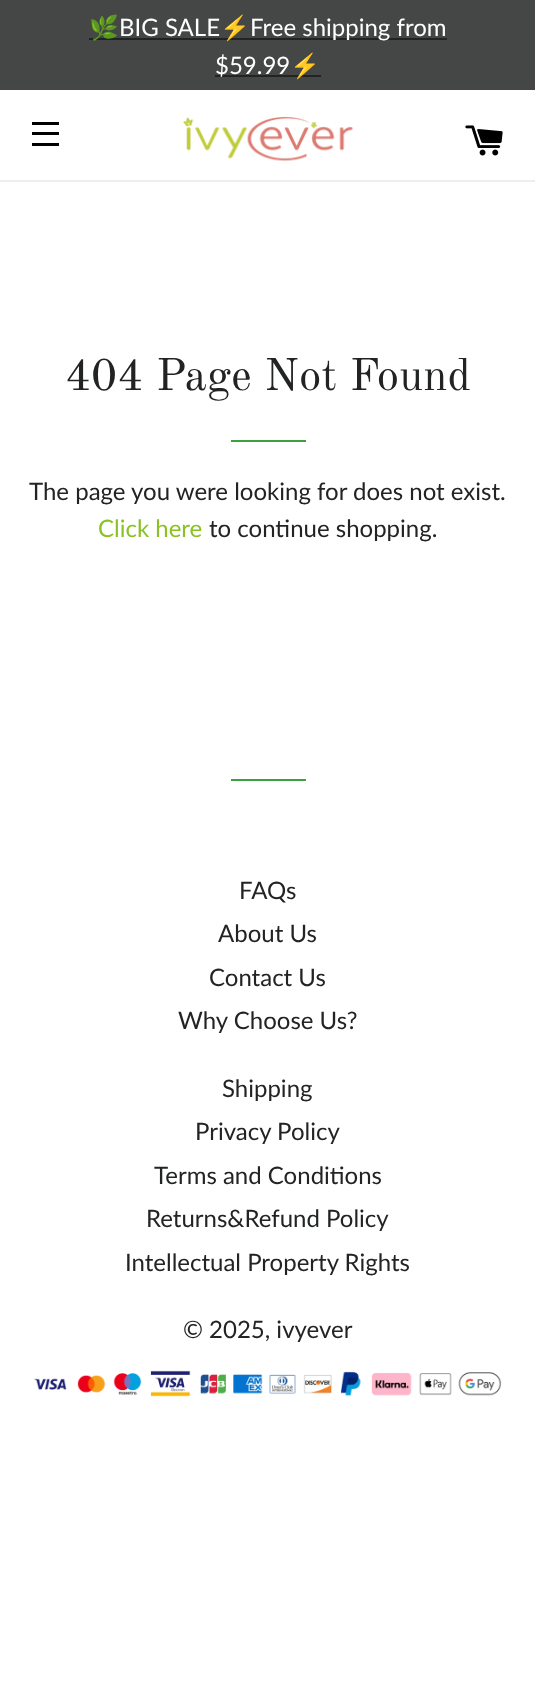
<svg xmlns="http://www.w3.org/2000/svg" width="535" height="1683">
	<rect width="100%" height="100%" fill="#FFFFFF" />
	<rect x="0" y="0" width="535" height="90" fill="#454747" />
	<rect x="89" y="38" width="358" height="2" fill="#222323" />
	<text x="89" y="36" font-family="Noto Color Emoji" font-size="24" fill="#FFFFFF">🌿</text>
	<text x="119" y="36" font-family="Lato" font-size="24" fill="#FFFFFF">BIG SALE</text>
	<text x="220" y="36" font-family="Noto Color Emoji" font-size="24" fill="#FFFFFF">⚡</text>
	<text x="250" y="36" font-family="Lato" font-size="24" fill="#FFFFFF">Free shipping from</text>
	<rect x="215" y="75" width="106" height="2" fill="#222323" />
	<text x="215" y="74" font-family="Lato" font-size="24" fill="#FFFFFF">$59.99</text>
	<text x="290" y="74" font-family="Noto Color Emoji" font-size="24" fill="#FFFFFF">⚡</text>
	<rect x="32" y="122" width="27" height="3" fill="#000000" />
	<rect x="32" y="132" width="27" height="3" fill="#000000" />
	<rect x="32" y="143" width="27" height="3" fill="#000000" />
	<image x="183" y="116" width="170" height="45" href="assets/img1.png" />
	<image x="465" y="125" width="38" height="31" href="assets/img2.png" />
	<rect x="0" y="180" width="535" height="2" fill="#ECEFEF" />
	<text x="65" y="390" font-family="Old Standard TT" font-size="45" fill="#222323">404 Page Not Found</text>
	<rect x="231" y="440" width="75" height="2" fill="#3CA03F" />
	<text x="29" y="500" font-family="Lato" font-size="24" fill="#222323">The page you were looking for does not exist.</text>
	<text x="98" y="537" font-family="Lato" font-size="24" fill="#8AC223">Click here</text>
	<text x="209" y="537" font-family="Lato" font-size="24" fill="#222323">to continue shopping.</text>
	<rect x="231" y="779" width="75" height="2" fill="#3CA03F" />
	<g font-family="Lato" font-size="24" fill="#222323">
		<text x="239" y="899">FAQs</text>
		<text x="218" y="942">About Us</text>
		<text x="209" y="986">Contact Us</text>
		<text x="178" y="1029">Why Choose Us?</text>
		<text x="222" y="1097">Shipping</text>
		<text x="195" y="1140">Privacy Policy</text>
		<text x="154" y="1184">Terms and Conditions</text>
		<text x="146" y="1227">Returns&amp;Refund Policy</text>
		<text x="125" y="1271">Intellectual Property Rights</text>
		<text x="183" y="1338">© 2025, ivyever</text>
	</g>
	<image x="33" y="1370" width="469" height="27" href="assets/img3.png" />
</svg>
